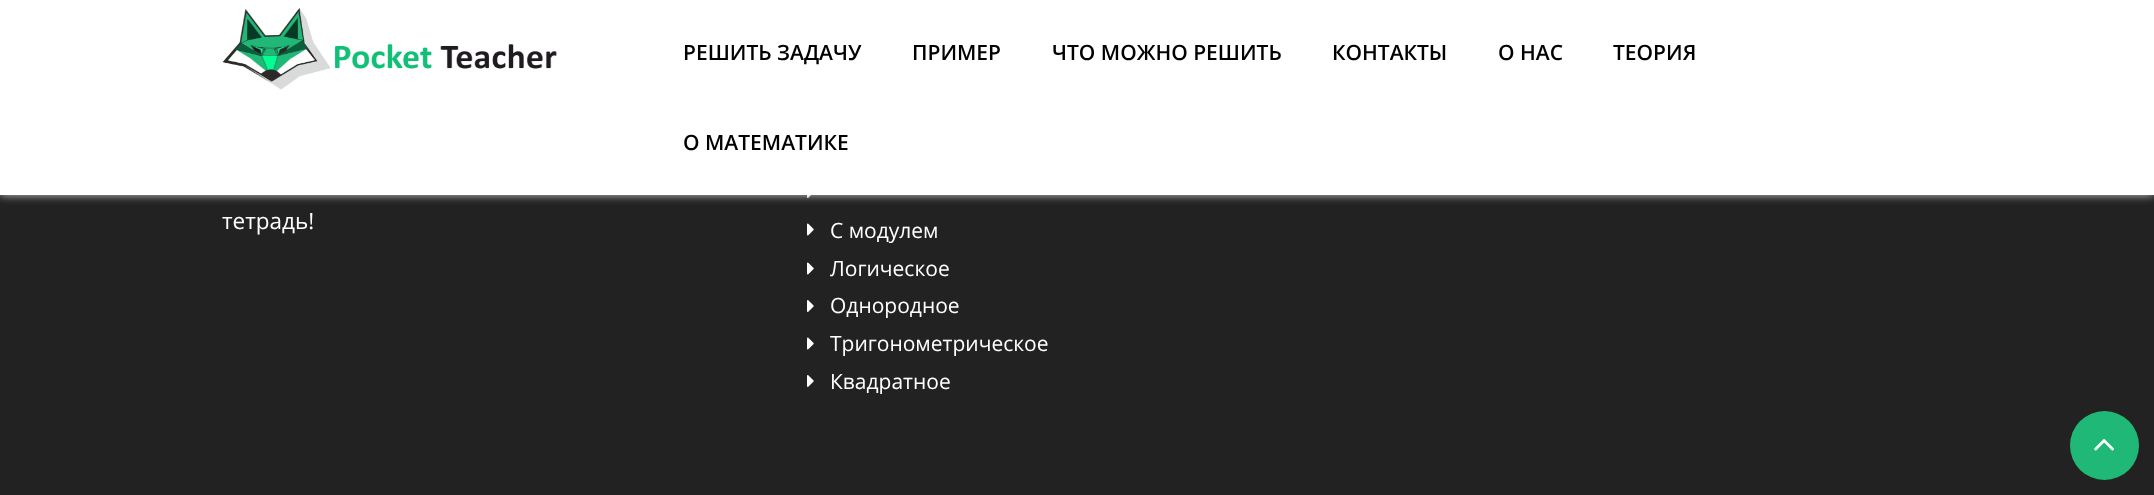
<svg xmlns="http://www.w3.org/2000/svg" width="2154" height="495">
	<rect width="100%" height="100%" fill="#222222" />
	<image x="807" y="195" width="4" height="3" href="assets/img2.png" />
	<rect x="0" y="0" width="2154" height="195" fill="#CCCCCC" filter="blur(5px)" />
	<rect x="0" y="0" width="2154" height="195" fill="#FFFFFF" />
	<image x="222" y="8" width="335" height="82" href="assets/img1.png" />
	<g font-family="Open Sans" font-size="21" font-weight="600" fill="#000000">
		<text x="683" y="60">РЕШИТЬ ЗАДАЧУ</text>
		<text x="912" y="60">ПРИМЕР</text>
		<text x="1052" y="60">ЧТО МОЖНО РЕШИТЬ</text>
		<text x="1332" y="60">КОНТАКТЫ</text>
		<text x="1498" y="60">О НАС</text>
		<text x="1613" y="60">ТЕОРИЯ</text>
		<text x="683" y="150">О МАТЕМАТИКЕ</text>
	</g>
	<text x="222" y="229" font-family="Open Sans" font-size="22.5" fill="#FFFFFF">тетрадь!</text>
	<image x="807" y="223" width="7" height="13" href="assets/img3.png" />
	<text x="830" y="238" font-family="Open Sans" font-size="21" fill="#FFFFFF">С модулем</text>
	<image x="807" y="262" width="7" height="13" href="assets/img3.png" />
	<text x="830" y="276" font-family="Open Sans" font-size="21" fill="#FFFFFF">Логическое</text>
	<image x="807" y="300" width="7" height="12" href="assets/img4.png" />
	<text x="830" y="313" font-family="Open Sans" font-size="21" fill="#FFFFFF">Однородное</text>
	<image x="807" y="337" width="7" height="13" href="assets/img3.png" />
	<text x="830" y="351" font-family="Open Sans" font-size="21" fill="#FFFFFF">Тригонометрическое</text>
	<image x="807" y="375" width="7" height="12" href="assets/img4.png" />
	<text x="830" y="389" font-family="Open Sans" font-size="21" fill="#FFFFFF">Квадратное</text>
	<circle cx="2104.5" cy="445.5" r="34.5" fill="#20B876" />
	<image x="2094" y="439" width="20" height="12" href="assets/img5.png" />
</svg>
